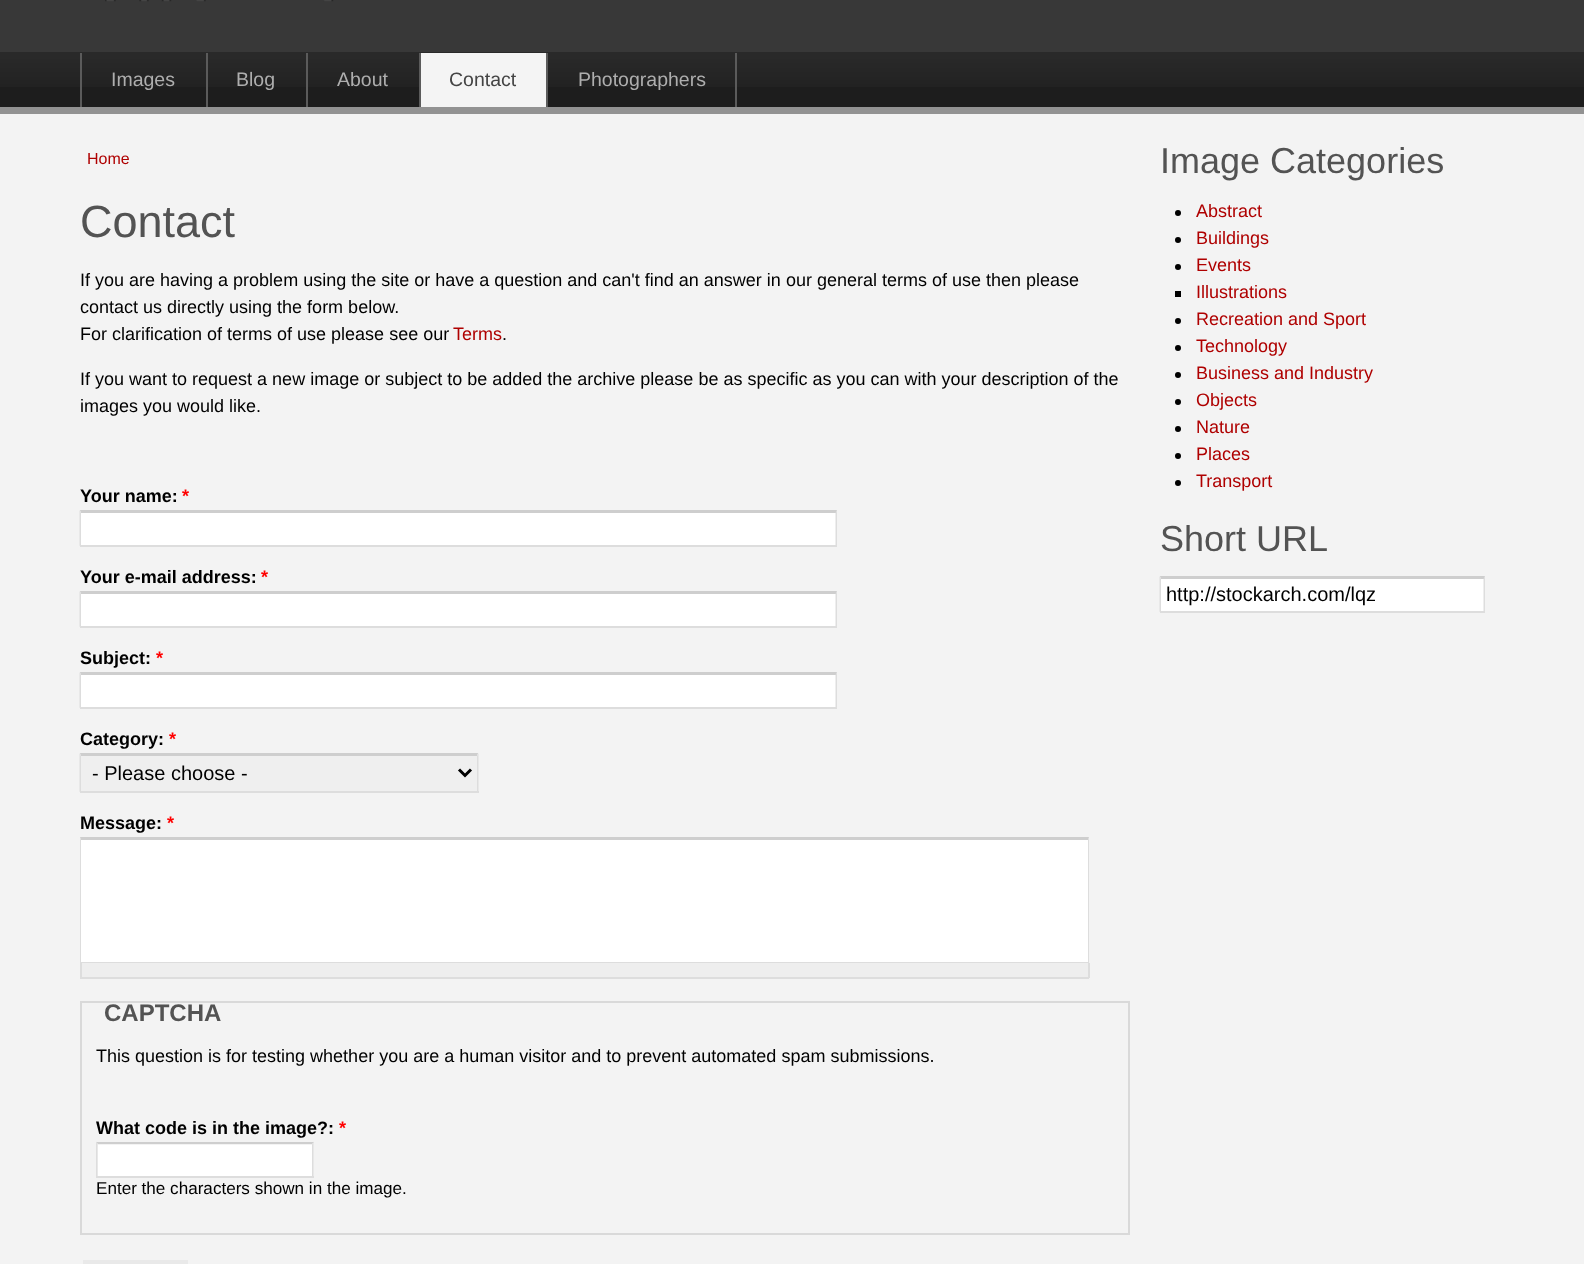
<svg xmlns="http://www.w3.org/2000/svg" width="1584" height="1264">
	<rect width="100%" height="100%" fill="#F3F3F3" />
	<rect x="0" y="0" width="1584" height="52" fill="#383838" />
	<image x="105" y="0" width="229" height="2" href="assets/img1.png" />
	<rect x="0" y="87" width="1584" height="20" fill="#1D1D1D" />
	<image x="0" y="52" width="1584" height="35" href="assets/img2.png" />
	<rect x="0" y="107" width="1584" height="7" fill="#929292" />
	<rect x="80" y="53" width="2" height="54" fill="#5B5B5B" />
	<text x="111" y="86" font-family="Liberation Sans" font-size="19.5" fill="#AEAEAE">Images</text>
	<rect x="206" y="53" width="2" height="54" fill="#5B5B5B" />
	<text x="236" y="86" font-family="Liberation Sans" font-size="19.5" fill="#AEAEAE">Blog</text>
	<rect x="306" y="53" width="2" height="54" fill="#5B5B5B" />
	<text x="337" y="86" font-family="Liberation Sans" font-size="19.5" fill="#AEAEAE">About</text>
	<rect x="421" y="53" width="125" height="54" fill="#F4F4F4" />
	<rect x="419" y="53" width="2" height="54" fill="#5B5B5B" />
	<text x="449" y="86" font-family="Liberation Sans" font-size="19.5" fill="#444444">Contact</text>
	<rect x="735" y="53" width="2" height="54" fill="#5B5B5B" />
	<rect x="546" y="53" width="2" height="54" fill="#5B5B5B" />
	<text x="578" y="86" font-family="Liberation Sans" font-size="19.5" fill="#AEAEAE">Photographers</text>
	<text x="87" y="164" font-family="Liberation Sans" font-size="16" fill="#AF0000">Home</text>
	<text x="80" y="237" font-family="Liberation Sans" font-size="45" fill="#535353">Contact</text>
	<g font-family="Liberation Sans" font-size="18" fill="#000000">
		<text x="80" y="286">If you are having a problem using the site or have a question and can't find an answer in our general terms of use then please</text>
		<text x="80" y="313">contact us directly using the form below.</text>
		<text x="80" y="340">For clarification of terms of use please see our</text>
	</g>
	<text x="453" y="340" font-family="Liberation Sans" font-size="18" fill="#AF0000">Terms</text>
	<g font-family="Liberation Sans" font-size="18" fill="#000000">
		<text x="502" y="340">.</text>
		<text x="80" y="385">If you want to request a new image or subject to be added the archive please be as specific as you can with your description of the</text>
		<text x="80" y="412">images you would like.</text>
	</g>
	<text x="80" y="502" font-family="Liberation Sans" font-size="18" font-weight="700" fill="#000000">Your name:</text>
	<text x="182" y="502" font-family="Liberation Sans" font-size="18" font-weight="700" fill="#FF0000">*</text>
	<rect x="81" y="513" width="755" height="32" fill="#FFFFFF" />
	<path d="M80 510H837L836 513H81Z" fill="#CECECE" />
	<path d="M837 510V546L835.5 544.5V513Z" fill="#DDDDDD" />
	<rect x="80" y="545" width="757" height="2" fill="#DDDDDD" />
	<path d="M79.5 546V510L81 513V544.5Z" fill="#DDDDDD" />
	<text x="80" y="583" font-family="Liberation Sans" font-size="18" font-weight="700" fill="#000000">Your e-mail address:</text>
	<text x="261" y="583" font-family="Liberation Sans" font-size="18" font-weight="700" fill="#FF0000">*</text>
	<rect x="81" y="594" width="755" height="32" fill="#FFFFFF" />
	<path d="M80 591H837L836 594H81Z" fill="#CECECE" />
	<path d="M837 591V627L835.5 625.5V594Z" fill="#DDDDDD" />
	<rect x="80" y="626" width="757" height="2" fill="#DDDDDD" />
	<path d="M79.5 627V591L81 594V625.5Z" fill="#DDDDDD" />
	<text x="80" y="664" font-family="Liberation Sans" font-size="18" font-weight="700" fill="#000000">Subject:</text>
	<text x="156" y="664" font-family="Liberation Sans" font-size="18" font-weight="700" fill="#FF0000">*</text>
	<rect x="81" y="675" width="755" height="32" fill="#FFFFFF" />
	<path d="M80 672H837L836 675H81Z" fill="#CECECE" />
	<path d="M837 672V708L835.5 706.5V675Z" fill="#DDDDDD" />
	<rect x="80" y="707" width="757" height="2" fill="#DDDDDD" />
	<path d="M79.5 708V672L81 675V706.5Z" fill="#DDDDDD" />
	<text x="80" y="745" font-family="Liberation Sans" font-size="18" font-weight="700" fill="#000000">Category:</text>
	<text x="169" y="745" font-family="Liberation Sans" font-size="18" font-weight="700" fill="#FF0000">*</text>
	<rect x="81" y="756" width="396" height="35" fill="#EFEFEF" />
	<path d="M80 753H478L477 756H81Z" fill="#CECECE" />
	<path d="M478.5 753V792L477 790.5V756Z" fill="#DDDDDD" />
	<rect x="80" y="791" width="399" height="2" fill="#DDDDDD" />
	<path d="M79.5 792V753L81 756V790.5Z" fill="#DDDDDD" />
	<path d="M459 769.5L465 775.5L471 769.5" fill="none" stroke="#000000" stroke-width="3" />
	<text x="92" y="780" font-family="Liberation Sans" font-size="20" fill="#000000">- Please choose -</text>
	<text x="80" y="829" font-family="Liberation Sans" font-size="18" font-weight="700" fill="#000000">Message:</text>
	<text x="167" y="829" font-family="Liberation Sans" font-size="18" font-weight="700" fill="#FF0000">*</text>
	<rect x="81" y="840" width="1007" height="122" fill="#FFFFFF" />
	<path d="M80 837H1089L1088 840H81Z" fill="#CECECE" />
	<path d="M1089 837V963L1088 962V840Z" fill="#DDDDDD" />
	<rect x="80" y="962" width="1009" height="1" fill="#DDDDDD" />
	<path d="M80 963V837L81 840V962Z" fill="#DDDDDD" />
	<rect x="82" y="963" width="1006" height="14" fill="#EEEEEE" />
	<rect x="1088" y="963" width="2" height="15" fill="#DDDDDD" />
	<rect x="80" y="977" width="1009" height="2" fill="#DDDDDD" />
	<rect x="80" y="963" width="2" height="15" fill="#DDDDDD" />
	<rect x="81" y="1002" width="1048" height="232" fill="none" stroke="#D9D9D9" stroke-width="2" />
	<text x="104" y="1021" font-family="Liberation Sans" font-size="24" font-weight="700" fill="#535353">CAPTCHA</text>
	<text x="96" y="1062" font-family="Liberation Sans" font-size="18" fill="#000000">This question is for testing whether you are a human visitor and to prevent automated spam submissions.</text>
	<text x="96" y="1134" font-family="Liberation Sans" font-size="18" font-weight="700" fill="#000000">What code is in the image?:</text>
	<text x="339" y="1134" font-family="Liberation Sans" font-size="18" font-weight="700" fill="#FF0000">*</text>
	<rect x="98" y="1145" width="214" height="31" fill="#FFFFFF" />
	<path d="M96 1142H314L312 1144H98Z" fill="#CECECE" />
	<path d="M313.5 1141.5V1177.5L312 1176V1144.5Z" fill="#DDDDDD" />
	<rect x="96" y="1176" width="218" height="2" fill="#DDDDDD" />
	<path d="M96 1177.5V1141.5L97.5 1144.5V1176Z" fill="#DDDDDD" />
	<text x="96" y="1194" font-family="Liberation Sans" font-size="17.1" fill="#000000">Enter the characters shown in the image.</text>
	<rect x="85.5" y="1262.5" width="100" height="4" fill="none" stroke="#E9E9E9" stroke-width="5" />
	<text x="1160" y="173" font-family="Liberation Sans" font-size="36" fill="#535353">Image Categories</text>
	<circle cx="1178" cy="213" r="3" fill="#000000" />
	<text x="1196" y="217" font-family="Liberation Sans" font-size="18" fill="#AF0000">Abstract</text>
	<circle cx="1178" cy="240" r="3" fill="#000000" />
	<text x="1196" y="244" font-family="Liberation Sans" font-size="18" fill="#AF0000">Buildings</text>
	<circle cx="1178" cy="267" r="3" fill="#000000" />
	<text x="1196" y="271" font-family="Liberation Sans" font-size="18" fill="#AF0000">Events</text>
	<rect x="1175" y="291" width="6" height="6" fill="#000000" />
	<text x="1196" y="298" font-family="Liberation Sans" font-size="18" fill="#AF0000">Illustrations</text>
	<circle cx="1178" cy="321" r="3" fill="#000000" />
	<text x="1196" y="325" font-family="Liberation Sans" font-size="18" fill="#AF0000">Recreation and Sport</text>
	<circle cx="1178" cy="348" r="3" fill="#000000" />
	<text x="1196" y="352" font-family="Liberation Sans" font-size="18" fill="#AF0000">Technology</text>
	<circle cx="1178" cy="375" r="3" fill="#000000" />
	<text x="1196" y="379" font-family="Liberation Sans" font-size="18" fill="#AF0000">Business and Industry</text>
	<circle cx="1178" cy="402" r="3" fill="#000000" />
	<text x="1196" y="406" font-family="Liberation Sans" font-size="18" fill="#AF0000">Objects</text>
	<circle cx="1178" cy="429" r="3" fill="#000000" />
	<text x="1196" y="433" font-family="Liberation Sans" font-size="18" fill="#AF0000">Nature</text>
	<circle cx="1178" cy="456" r="3" fill="#000000" />
	<text x="1196" y="460" font-family="Liberation Sans" font-size="18" fill="#AF0000">Places</text>
	<circle cx="1178" cy="483" r="3" fill="#000000" />
	<text x="1196" y="487" font-family="Liberation Sans" font-size="18" fill="#AF0000">Transport</text>
	<text x="1160" y="551" font-family="Liberation Sans" font-size="36" fill="#535353">Short URL</text>
	<rect x="1161" y="579" width="323" height="32" fill="#FFFFFF" />
	<path d="M1160 576H1485L1484 579H1161Z" fill="#CECECE" />
	<path d="M1485 576V612L1483.5 610.5V579Z" fill="#DDDDDD" />
	<rect x="1160" y="611" width="325" height="2" fill="#DDDDDD" />
	<path d="M1159.5 612V576L1161 579V610.5Z" fill="#DDDDDD" />
	<text x="1166" y="601" font-family="Liberation Sans" font-size="20" fill="#000000">http://stockarch.com/lqz</text>
</svg>
